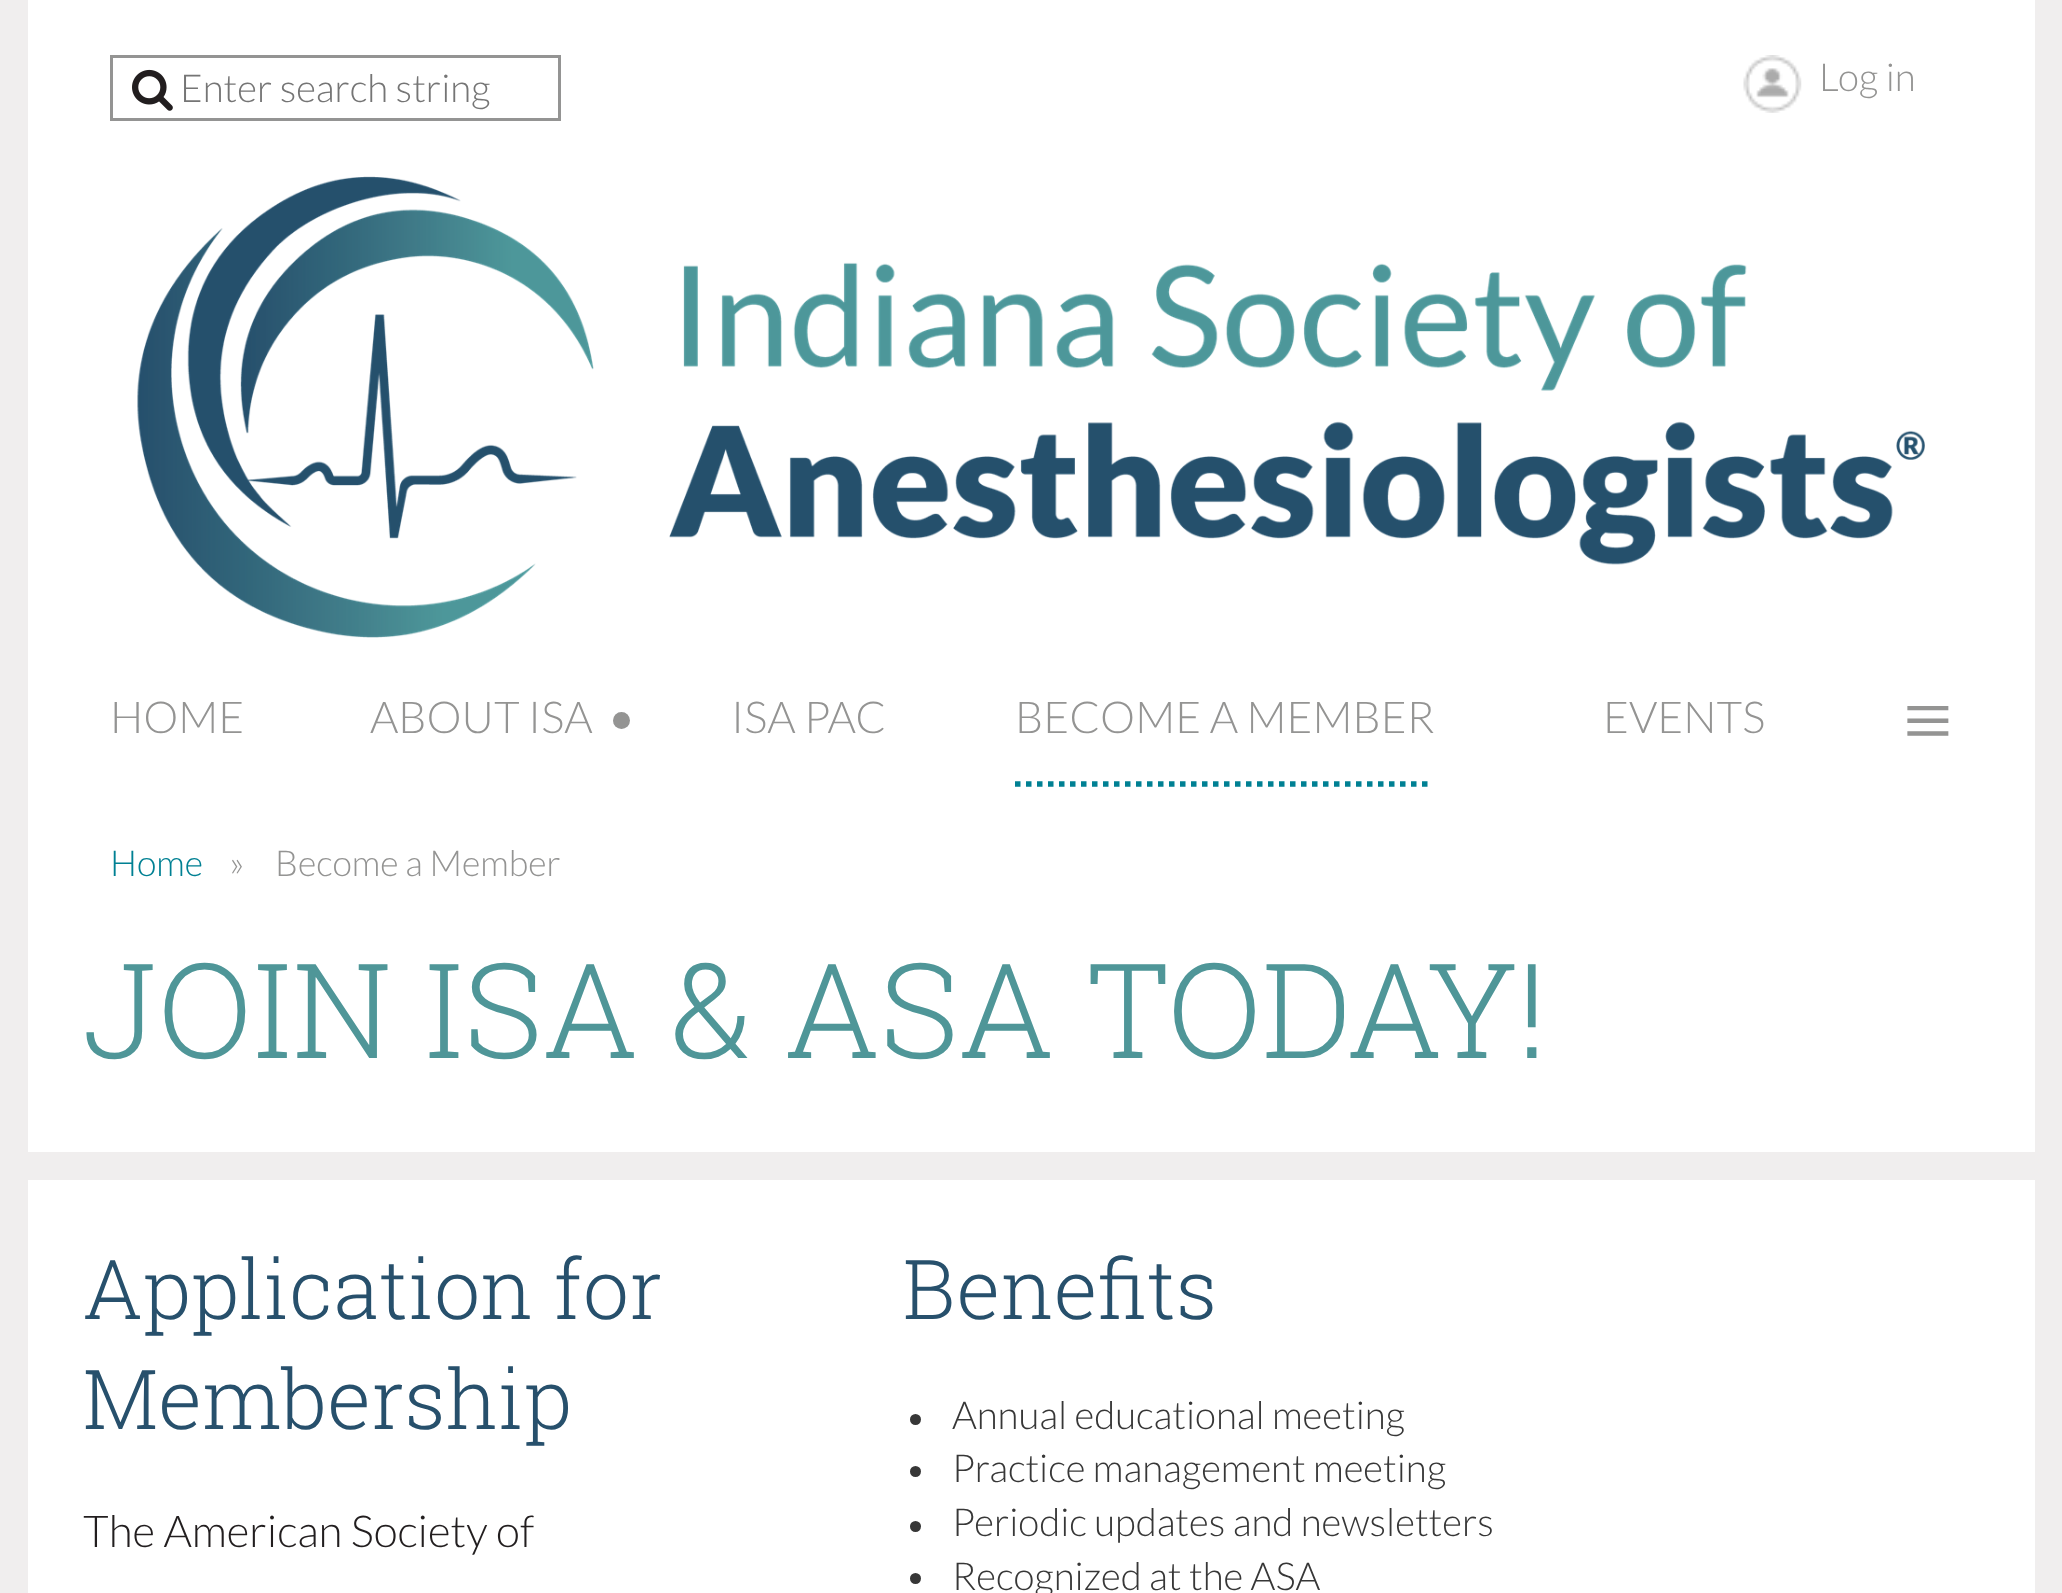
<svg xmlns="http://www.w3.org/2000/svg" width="2062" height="1593">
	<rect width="100%" height="100%" fill="#F0EEEE" />
	<rect x="28" y="0" width="2007" height="1152" fill="#FFFFFF" />
	<rect x="111.5" y="56.5" width="448" height="63" fill="none" stroke="#949493" stroke-width="3" />
	<image x="132" y="69" width="41" height="42" href="assets/img1.png" />
	<text x="180" y="102" font-family="Lato" font-size="38.5" font-weight="300" fill="#757575">Enter search string</text>
	<image x="1743" y="55" width="59" height="58" href="assets/img2.png" />
	<text x="1819" y="91" font-family="Lato" font-size="38.5" font-weight="300" fill="#949493">Log in</text>
	<image x="137" y="176" width="1788" height="462" href="assets/img3.png" />
	<g font-family="Lato" font-size="44" font-weight="300" fill="#949493">
		<text x="110" y="733">HOME</text>
		<text x="370" y="733">ABOUT ISA</text>
	</g>
	<circle cx="621.5" cy="720.5" r="8.5" fill="#949493" />
	<text x="731" y="733" font-family="Lato" font-size="44" font-weight="300" fill="#949493">ISA PAC</text>
	<path d="M1015 784H1433" fill="none" stroke="#008093" stroke-width="5.5" stroke-dasharray="5.5 5.5" />
	<g font-family="Lato" font-size="44" font-weight="300" fill="#949493">
		<text x="1015" y="733">BECOME A MEMBER</text>
		<text x="1603" y="733">EVENTS</text>
	</g>
	<text x="1903" y="750" font-family="Liberation Serif" font-size="88" fill="#949493">≡</text>
	<text x="110" y="876" font-family="Lato" font-size="35.75" font-weight="300" fill="#008093">Home</text>
	<g font-family="Lato" font-size="35.75" font-weight="300" fill="#949493">
		<text x="229" y="876">»</text>
		<text x="275" y="876">Become a Member</text>
	</g>
	<text x="83" y="1058" font-family="Roboto Slab" font-size="132" font-weight="300" fill="#4F9698">JOIN ISA &amp; ASA TODAY!</text>
	<rect x="28" y="1180" width="2007" height="413" fill="#FFFFFF" />
	<g font-family="Roboto Slab" font-size="82.5" font-weight="300" fill="#27506C">
		<text x="83" y="1319">Application for</text>
		<text x="83" y="1429">Membership</text>
	</g>
	<text x="83" y="1547" font-family="Lato" font-size="44" font-weight="300" fill="#221E1F">The American Society of</text>
	<text x="903" y="1319" font-family="Roboto Slab" font-size="82.5" font-weight="300" fill="#27506C">Benefits</text>
	<circle cx="915.5" cy="1419.5" r="5.5" fill="#373737" />
	<text x="952" y="1429" font-family="Lato" font-size="38.5" font-weight="300" fill="#373737">Annual educational meeting</text>
	<circle cx="915.5" cy="1471.5" r="5.5" fill="#373737" />
	<text x="952" y="1482" font-family="Lato" font-size="38.5" font-weight="300" fill="#373737">Practice management meeting</text>
	<circle cx="915.5" cy="1526.5" r="5.5" fill="#373737" />
	<text x="952" y="1536" font-family="Lato" font-size="38.5" font-weight="300" fill="#373737">Periodic updates and newsletters</text>
	<circle cx="915.5" cy="1578.5" r="5.5" fill="#373737" />
	<text x="952" y="1590" font-family="Lato" font-size="38.5" font-weight="300" fill="#373737">Recognized at the ASA</text>
</svg>
